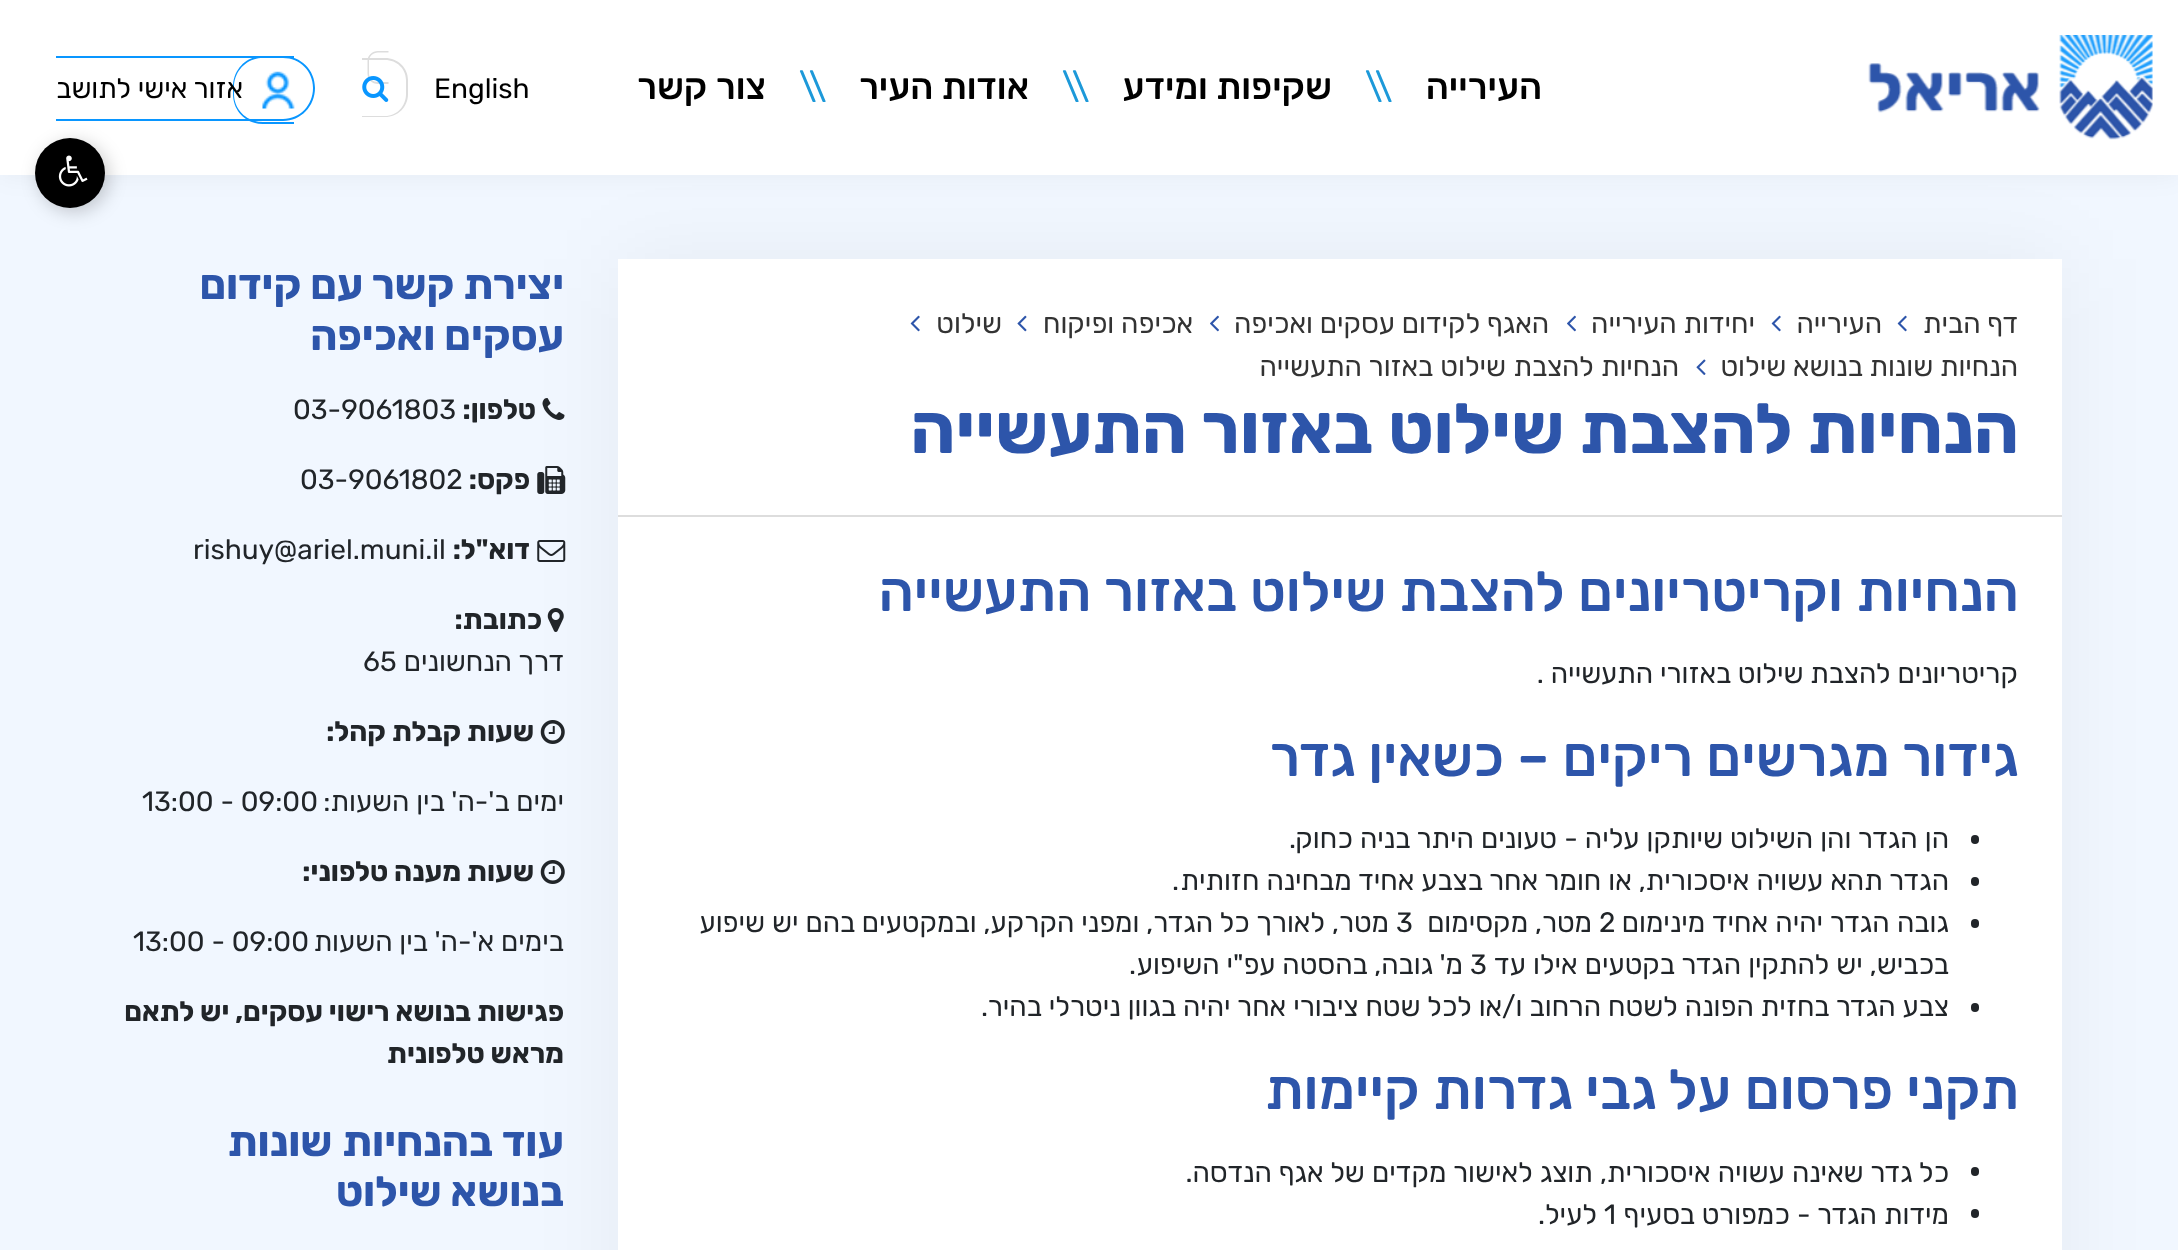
<svg xmlns="http://www.w3.org/2000/svg" width="2178" height="1250">
	<rect width="100%" height="100%" fill="#F1F7FF" />
	<rect x="0" y="0" width="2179" height="175" fill="#000000" fill-opacity="0.05" filter="blur(13px)" />
	<rect x="618" y="259" width="1444" height="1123" fill="#000000" fill-opacity="0.05" filter="blur(44px)" />
	<rect x="0" y="0" width="2178" height="175" fill="#FFFFFF" />
	<image x="1868" y="35" width="285" height="105" href="assets/img1.png" />
	<text x="1542" y="99" font-family="Rubik" font-size="36.5" font-weight="500" direction="rtl" fill="#000000">העירייה</text>
	<text x="1365" y="99" font-family="Rubik" font-size="36.5" fill="#1D99D9">\\</text>
	<text x="1332" y="99" font-family="Rubik" font-size="36.5" font-weight="500" direction="rtl" fill="#000000">שקיפות ומידע</text>
	<text x="1062" y="99" font-family="Rubik" font-size="36.5" fill="#1D99D9">\\</text>
	<text x="1029" y="99" font-family="Rubik" font-size="36.5" font-weight="500" direction="rtl" fill="#000000">אודות העיר</text>
	<text x="799" y="99" font-family="Rubik" font-size="36.5" fill="#1D99D9">\\</text>
	<text x="766" y="99" word-spacing="1" font-family="Rubik" font-size="36.5" font-weight="500" direction="rtl" fill="#000000">צור קשר</text>
	<text x="434" y="98" font-family="Rubik" font-size="28" fill="#000000">English</text>
	<path d="M378 51H388.5V84H378C372 84 367.5 79.5 367.5 73.5V61C367.5 55.5 372 51 378 51ZM378 52.5H388.5V82H378C373 82 369 78.5 369 73.5V61C369 56.5 373 52.5 378 52.5Z" fill="#DDDDDD" fill-rule="evenodd" />
	<path d="M362 58H385C398 58 408 68 408 80V94C408 107 398 117 385 117H362ZM362 60H385C397 60 406 69 406 80V94C406 106 397 116 385 116H362Z" fill="#DDDDDD" fill-rule="evenodd" />
	<image x="362" y="76" width="27" height="26" href="assets/img2.png" />
	<path d="M263 56H294V124H263C246 124 233 111 233 94V87C233 70 246 56 263 56ZM263 58H294V122H263C247 122 234 110 234 94V87C234 71 247 58 263 58Z" fill="#0996FF" fill-rule="evenodd" />
	<path d="M56 56H283C301 56 315 70 315 88C315 106 301 121 283 121H56ZM56 58H283C300 58 313 71 313 88C313 105 300 119 283 119H56Z" fill="#0996FF" fill-rule="evenodd" />
	<image x="262" y="71" width="33" height="38" href="assets/img3.png" />
	<text x="243" y="98" font-family="Rubik" font-size="28" direction="rtl" fill="#000000">אזור אישי לתושב</text>
	<rect x="39" y="142" width="70" height="70" rx="35" fill="#000000" fill-opacity="0.2" filter="blur(9px)" />
	<circle cx="70" cy="173" r="35" fill="#000000" />
	<image x="58" y="155" width="30" height="32" href="assets/img4.png" />
	<rect x="618" y="259" width="1444" height="991" fill="#FFFFFF" />
	<rect x="618" y="515" width="1444" height="2" fill="#DDDDDD" />
	<text x="2018" y="333" font-family="Rubik" font-size="28" direction="rtl" fill="#333333">דף הבית</text>
	<image x="1897" y="315" width="10" height="17" href="assets/img5.png" />
	<text x="1882" y="333" font-family="Rubik" font-size="28" direction="rtl" fill="#333333">העירייה</text>
	<image x="1771" y="315" width="10" height="17" href="assets/img5.png" />
	<text x="1755" y="333" font-family="Rubik" font-size="28" direction="rtl" fill="#333333">יחידות העירייה</text>
	<image x="1567" y="315" width="9" height="17" href="assets/img6.png" />
	<text x="1549" y="333" font-family="Rubik" font-size="28" direction="rtl" fill="#333333">האגף לקידום עסקים ואכיפה</text>
	<image x="1210" y="315" width="9" height="17" href="assets/img6.png" />
	<text x="1193" y="333" font-family="Rubik" font-size="28" direction="rtl" fill="#333333">אכיפה ופיקוח</text>
	<image x="1017" y="315" width="10" height="17" href="assets/img7.png" />
	<text x="1002" y="333" font-family="Rubik" font-size="28" direction="rtl" fill="#333333">שילוט</text>
	<image x="910" y="315" width="10" height="17" href="assets/img5.png" />
	<text x="2018" y="376" font-family="Rubik" font-size="28" direction="rtl" fill="#333333">הנחיות שונות בנושא שילוט</text>
	<image x="1696" y="359" width="10" height="16" href="assets/img8.png" />
	<text x="1679" y="376" word-spacing="0.5" font-family="Rubik" font-size="28" direction="rtl" fill="#333333">הנחיות להצבת שילוט באזור התעשייה</text>
	<text x="2019" y="453" word-spacing="0.5" font-family="Rubik" font-size="70" font-weight="700" direction="rtl" fill="#2D55AA">הנחיות להצבת שילוט באזור התעשייה</text>
	<text x="2019" y="611" word-spacing="0.5" font-family="Rubik" font-size="56" font-weight="500" direction="rtl" fill="#2D55AA">הנחיות וקריטריונים להצבת שילוט באזור התעשייה</text>
	<text x="2018" y="683" font-family="Rubik" font-size="28" direction="rtl" fill="#212529">קריטריונים להצבת שילוט באזורי התעשייה .</text>
	<text x="2019" y="776" word-spacing="0.5" font-family="Rubik" font-size="56" font-weight="500" direction="rtl" fill="#2D55AA">גידור מגרשים ריקים – כשאין גדר</text>
	<rect x="1971" y="835" width="8" height="9" rx="4" fill="#212529" />
	<text x="1949" y="848" word-spacing="0.25" font-family="Rubik" font-size="28" direction="rtl" fill="#212529">הן הגדר והן השילוט שיותקן עליה - טעונים היתר בניה כחוק</text>
	<text x="1289" y="848" font-family="Rubik" font-size="28" fill="#212529">.</text>
	<rect x="1971" y="877" width="8" height="9" rx="4" fill="#212529" />
	<text x="1949" y="890" word-spacing="0.25" font-family="Rubik" font-size="28" direction="rtl" fill="#212529">הגדר תהא עשויה איסכורית, או חומר אחר בצבע אחיד מבחינה חזותית</text>
	<text x="1172" y="890" font-family="Rubik" font-size="28" fill="#212529">.</text>
	<rect x="1971" y="919" width="8" height="9" rx="4" fill="#212529" />
	<text x="1949" y="932" word-spacing="0.5" font-family="Rubik" font-size="28" direction="rtl" fill="#212529">גובה הגדר יהיה אחיד מינימום</text>
	<text x="1599" y="932" font-family="Rubik" font-size="28" fill="#212529">2</text>
	<text x="1592" y="932" font-family="Rubik" font-size="28" direction="rtl" fill="#212529">מטר, מקסימום</text>
	<text x="1396" y="932" font-family="Rubik" font-size="28" fill="#212529">3</text>
	<g font-family="Rubik" font-size="28" direction="rtl" fill="#212529">
		<text x="1389" y="932" word-spacing="0.1">מטר, לאורך כל הגדר, ומפני הקרקע, ובמקטעים בהם יש שיפוע</text>
		<text x="1949" y="974" word-spacing="0.25">בכביש, יש להתקין הגדר בקטעים אילו עד</text>
	</g>
	<text x="1470" y="974" font-family="Rubik" font-size="28" fill="#212529">3</text>
	<text x="1463" y="974" font-family="Rubik" font-size="28" direction="rtl" fill="#212529">מ' גובה, בהסטה עפ"י השיפוע</text>
	<text x="1129" y="974" font-family="Rubik" font-size="28" fill="#212529">.</text>
	<rect x="1971" y="1003" width="8" height="9" rx="4" fill="#212529" />
	<text x="1949" y="1016" word-spacing="0.25" font-family="Rubik" font-size="28" direction="rtl" fill="#212529">צבע הגדר בחזית הפונה לשטח הרחוב ו/או לכל שטח ציבורי אחר יהיה בגוון ניטרלי בהיר</text>
	<text x="981" y="1016" font-family="Rubik" font-size="28" fill="#212529">.</text>
	<text x="2019" y="1109" word-spacing="0.5" font-family="Rubik" font-size="56" font-weight="500" direction="rtl" fill="#2D55AA">תקני פרסום על גבי גדרות קיימות</text>
	<rect x="1971" y="1167" width="8" height="9" rx="4" fill="#212529" />
	<text x="1949" y="1182" word-spacing="0.4" font-family="Rubik" font-size="28" direction="rtl" fill="#212529">כל גדר שאינה עשויה איסכורית, תוצג לאישור מקדים של אגף הנדסה.</text>
	<rect x="1971" y="1209" width="8" height="9" rx="4" fill="#212529" />
	<text x="1949" y="1224" word-spacing="0.25" font-family="Rubik" font-size="28" direction="rtl" fill="#212529">מידות הגדר - כמפורט בסעיף</text>
	<text x="1604" y="1224" font-family="Rubik" font-size="28" fill="#212529">1</text>
	<text x="1597" y="1224" font-family="Rubik" font-size="28" direction="rtl" fill="#212529">לעיל</text>
	<text x="1538" y="1224" font-family="Rubik" font-size="28" fill="#212529">.</text>
	<g font-family="Rubik" font-size="42" font-weight="700" direction="rtl" fill="#2D55AA">
		<text x="564" y="299">יצירת קשר עם קידום</text>
		<text x="564" y="350">עסקים ואכיפה</text>
	</g>
	<image x="542" y="398" width="23" height="22" href="assets/img9.png" />
	<text x="536" y="419" font-family="Rubik" font-size="28" font-weight="700" direction="rtl" fill="#212529">טלפון:</text>
	<text x="293" y="419" font-family="Rubik" font-size="28" fill="#212529">03-9061803</text>
	<image x="537" y="466" width="29" height="28" href="assets/img10.png" />
	<text x="530" y="489" font-family="Rubik" font-size="28" font-weight="700" direction="rtl" fill="#212529">פקס:</text>
	<text x="300" y="489" font-family="Rubik" font-size="28" fill="#212529">03-9061802</text>
	<image x="537" y="540" width="29" height="22" href="assets/img11.png" />
	<text x="530" y="559" font-family="Rubik" font-size="28" font-weight="700" direction="rtl" fill="#212529">דוא"ל:</text>
	<text x="193" y="559" font-family="Rubik" font-size="28" fill="#212529">rishuy@ariel.muni.il</text>
	<image x="547" y="608" width="17" height="24" href="assets/img12.png" />
	<text x="542" y="629" font-family="Rubik" font-size="28" font-weight="700" direction="rtl" fill="#212529">כתובת:</text>
	<text x="564" y="671" font-family="Rubik" font-size="28" direction="rtl" fill="#212529">דרך הנחשונים</text>
	<text x="363" y="671" font-family="Rubik" font-size="28" fill="#212529">65</text>
	<image x="540" y="720" width="25" height="24" href="assets/img13.png" />
	<text x="534" y="741" font-family="Rubik" font-size="28" font-weight="700" direction="rtl" fill="#212529">שעות קבלת קהל:</text>
	<text x="564" y="811" font-family="Rubik" font-size="28" direction="rtl" fill="#212529">ימים ב'-ה' בין השעות:</text>
	<text x="142" y="811" font-family="Rubik" font-size="28" fill="#212529">13:00 - 09:00</text>
	<image x="540" y="860" width="25" height="24" href="assets/img13.png" />
	<text x="534" y="881" font-family="Rubik" font-size="28" font-weight="700" direction="rtl" fill="#212529">שעות מענה טלפוני:</text>
	<text x="564" y="951" font-family="Rubik" font-size="28" direction="rtl" fill="#212529">בימים א'-ה' בין השעות</text>
	<text x="133" y="951" font-family="Rubik" font-size="28" fill="#212529">13:00 - 09:00</text>
	<g font-family="Rubik" font-size="28" font-weight="700" direction="rtl" fill="#212529">
		<text x="564" y="1021">פגישות בנושא רישוי עסקים, יש לתאם</text>
		<text x="564" y="1063">מראש טלפונית</text>
	</g>
	<g font-family="Rubik" font-size="42" font-weight="700" direction="rtl" fill="#2D55AA">
		<text x="564" y="1156" word-spacing="1">עוד בהנחיות שונות</text>
		<text x="564" y="1206">בנושא שילוט</text>
	</g>
</svg>
